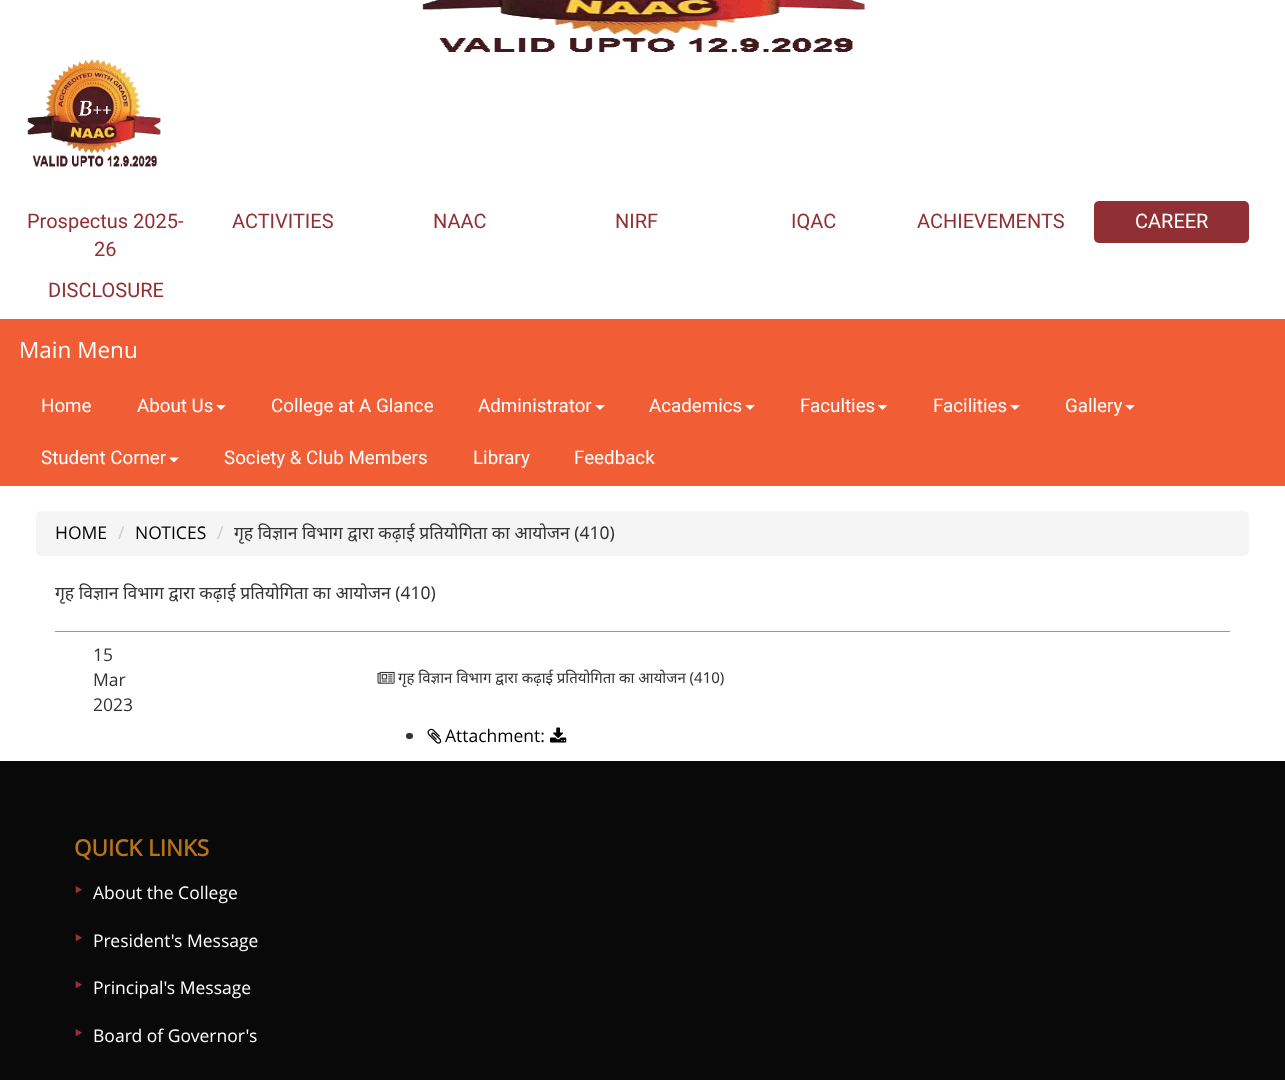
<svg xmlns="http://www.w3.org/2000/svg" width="1285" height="1080">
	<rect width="100%" height="100%" fill="#FFFFFF" />
	<image x="422" y="0" width="443" height="52" href="assets/img1.png" />
	<image x="27" y="59" width="134" height="108" href="assets/img2.png" />
	<g font-family="Roboto" font-size="20" fill="#903034">
		<text x="27" y="228">Prospectus 2025-</text>
		<text x="94" y="256">26</text>
		<text x="232" y="228">ACTIVITIES</text>
		<text x="433" y="228">NAAC</text>
		<text x="615" y="228">NIRF</text>
		<text x="791" y="228">IQAC</text>
		<text x="917" y="228">ACHIEVEMENTS</text>
	</g>
	<rect x="1094" y="201" width="155" height="42" rx="5" fill="#903034" />
	<text x="1135" y="228" font-family="Roboto" font-size="20" fill="#FFFFFF">CAREER</text>
	<text x="48" y="297" font-family="Roboto" font-size="20" fill="#903034">DISCLOSURE</text>
	<rect x="0" y="319" width="1285" height="167" fill="#F15D35" />
	<text x="19" y="358" font-family="Open Sans" font-size="22.5" fill="#FFFFFF">Main Menu</text>
	<g font-family="Roboto" font-size="18.75" fill="#FFFFFF">
		<text x="41" y="412">Home</text>
		<text x="137" y="412">About Us</text>
	</g>
	<path d="M216 405H226L221 410Z" fill="#FFFFFF" />
	<g font-family="Roboto" font-size="18.75" fill="#FFFFFF">
		<text x="271" y="412">College at A Glance</text>
		<text x="478" y="412">Administrator</text>
	</g>
	<path d="M595 405H605L600 410Z" fill="#FFFFFF" />
	<text x="649" y="412" font-family="Roboto" font-size="18.75" fill="#FFFFFF">Academics</text>
	<path d="M745 405H755L750 410Z" fill="#FFFFFF" />
	<text x="800" y="412" font-family="Roboto" font-size="18.75" fill="#FFFFFF">Faculties</text>
	<path d="M877.5 405H887.5L882.5 410Z" fill="#FFFFFF" />
	<text x="933" y="412" font-family="Roboto" font-size="18.75" fill="#FFFFFF">Facilities</text>
	<path d="M1010 405H1020L1015 410Z" fill="#FFFFFF" />
	<text x="1065" y="412" font-family="Roboto" font-size="18.75" fill="#FFFFFF">Gallery</text>
	<path d="M1125 405H1135L1130 410Z" fill="#FFFFFF" />
	<text x="41" y="464" font-family="Roboto" font-size="18.75" fill="#FFFFFF">Student Corner</text>
	<path d="M169 457.5H179L174 462.5Z" fill="#FFFFFF" />
	<g font-family="Roboto" font-size="18.75" fill="#FFFFFF">
		<text x="224" y="464">Society &amp; Club Members</text>
		<text x="473" y="464">Library</text>
		<text x="574" y="464">Feedback</text>
	</g>
	<rect x="36" y="511" width="1213" height="45" rx="5" fill="#F5F5F5" />
	<text x="55" y="539" font-family="Open Sans" font-size="17.5" fill="#000000">HOME</text>
	<text x="118" y="539" font-family="Open Sans" font-size="17.5" fill="#CCCCCC">/</text>
	<text x="135" y="539" font-family="Open Sans" font-size="17.5" fill="#000000">NOTICES</text>
	<text x="217" y="539" font-family="Open Sans" font-size="17.5" fill="#CCCCCC">/</text>
	<g font-family="Noto Sans" font-size="17.5" fill="#333333">
		<text x="234" y="539">गृह विज्ञान विभाग द्वारा कढ़ाई प्रतियोगिता का आयोजन (410)</text>
		<text x="55" y="599">गृह विज्ञान विभाग द्वारा कढ़ाई प्रतियोगिता का आयोजन (410)</text>
	</g>
	<rect x="55" y="631" width="1175" height="1" fill="#999999" />
	<g font-family="Open Sans" font-size="17.5" fill="#333333">
		<text x="93" y="661">15</text>
		<text x="93" y="686">Mar</text>
		<text x="93" y="711">2023</text>
	</g>
	<image x="377" y="671" width="18" height="13" href="assets/img3.png" />
	<text x="398" y="683" font-family="Noto Sans" font-size="15" fill="#333333">गृह विज्ञान विभाग द्वारा कढ़ाई प्रतियोगिता का आयोजन (410)</text>
	<rect x="406" y="733" width="7" height="6" rx="3" fill="#333333" />
	<image x="427" y="728" width="15" height="16" href="assets/img4.png" />
	<text x="445" y="742" font-family="Open Sans" font-size="17.5" fill="#000000">Attachment:</text>
	<image x="550" y="727" width="17" height="16" href="assets/img5.png" />
	<rect x="0" y="761" width="1285" height="319" fill="#0A0909" />
	<text x="74" y="856" font-family="Open Sans" font-size="22.5" font-weight="700" fill="#B77416">QUICK LINKS</text>
	<text x="74" y="899" font-family="Noto Sans" font-size="25" fill="#993034">‣</text>
	<text x="93" y="899" font-family="Open Sans" font-size="17.5" fill="#FFFFFF">About the College</text>
	<text x="74" y="947" font-family="Noto Sans" font-size="25" fill="#993034">‣</text>
	<text x="93" y="947" font-family="Open Sans" font-size="17.5" fill="#FFFFFF">President's Message</text>
	<text x="74" y="994" font-family="Noto Sans" font-size="25" fill="#993034">‣</text>
	<text x="93" y="994" font-family="Open Sans" font-size="17.5" fill="#FFFFFF">Principal's Message</text>
	<text x="74" y="1042" font-family="Noto Sans" font-size="25" fill="#993034">‣</text>
	<text x="93" y="1042" font-family="Open Sans" font-size="17.5" fill="#FFFFFF">Board of Governor's</text>
</svg>
